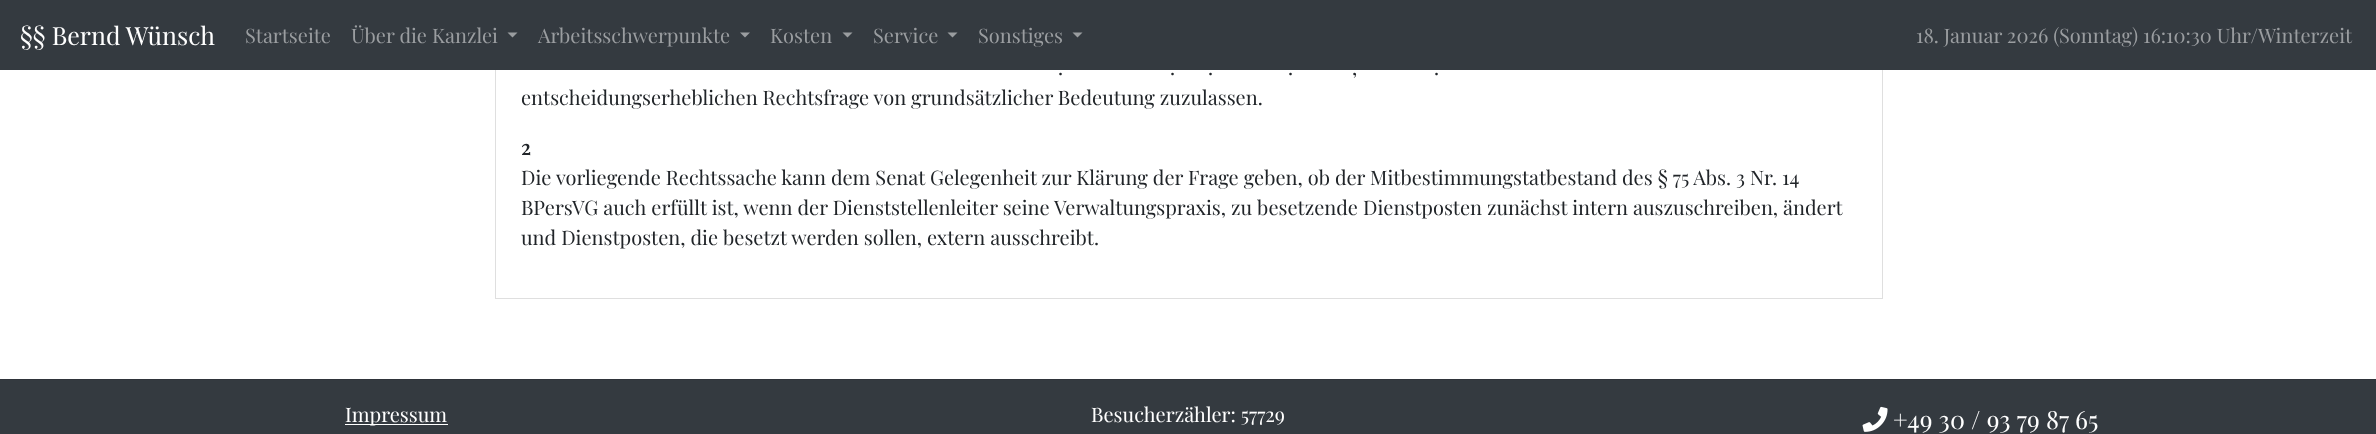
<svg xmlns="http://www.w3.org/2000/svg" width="2376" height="434">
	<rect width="100%" height="100%" fill="#FFFFFF" />
	<rect x="495.5" y="-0.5" width="1387" height="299" fill="none" stroke="#DFDFDF" />
	<rect x="0" y="0" width="2376" height="70" fill="#343A40" />
	<text x="20" y="45" font-family="Playfair Display" font-size="25" fill="#FFFFFF">§§ Bernd Wünsch</text>
	<g font-family="Playfair Display" font-size="20" fill="#9A9DA0">
		<text x="245" y="43">Startseite</text>
		<text x="351" y="43">Über die Kanzlei</text>
	</g>
	<path d="M507.5 32.5H517.5L512.5 37.5Z" fill="#9A9DA0" />
	<text x="538" y="43" font-family="Playfair Display" font-size="20" fill="#9A9DA0">Arbeitsschwerpunkte</text>
	<path d="M740 32.5H750L745 37.5Z" fill="#9A9DA0" />
	<text x="770" y="43" font-family="Playfair Display" font-size="20" fill="#9A9DA0">Kosten</text>
	<path d="M842.5 32.5H852.5L847.5 37.5Z" fill="#9A9DA0" />
	<text x="873" y="43" font-family="Playfair Display" font-size="20" fill="#9A9DA0">Service</text>
	<path d="M947.5 32.5H957.5L952.5 37.5Z" fill="#9A9DA0" />
	<text x="978" y="43" font-family="Playfair Display" font-size="20" fill="#9A9DA0">Sonstiges</text>
	<path d="M1072.5 32.5H1082.5L1077.5 37.5Z" fill="#9A9DA0" />
	<text x="1916" y="43" font-family="Playfair Display" font-size="20" fill="#9A9DA0">18. Januar 2026 (Sonntag) 16:10:30 Uhr/Winterzeit</text>
	<g font-family="Playfair Display" font-size="20" fill="#212529">
		<text x="1058" y="75">.</text>
		<text x="1170" y="75">.</text>
		<text x="1208" y="75">.</text>
		<text x="1288" y="75">.</text>
		<text x="1352" y="75">,</text>
		<text x="1434" y="75">.</text>
		<text x="521" y="105">entscheidungserheblichen Rechtsfrage von grundsätzlicher Bedeutung zuzulassen.</text>
	</g>
	<text x="521" y="155" font-family="Playfair Display" font-size="20" font-weight="700" fill="#212529">2</text>
	<g font-family="Playfair Display" font-size="20" fill="#212529">
		<text x="521" y="185">Die vorliegende Rechtssache kann dem Senat Gelegenheit zur Klärung der Frage geben, ob der Mitbestimmungstatbestand des § 75 Abs. 3 Nr. 14</text>
		<text x="521" y="215">BPersVG auch erfüllt ist, wenn der Dienststellenleiter seine Verwaltungspraxis, zu besetzende Dienstposten zunächst intern auszuschreiben, ändert</text>
		<text x="521" y="245">und Dienstposten, die besetzt werden sollen, extern ausschreibt.</text>
	</g>
	<rect x="0" y="380" width="2376" height="54" fill="#343A40" />
	<rect x="0" y="379" width="2376" height="1" fill="#2F343A" />
	<rect x="345" y="424" width="103" height="1" fill="#FFFFFF" />
	<g font-family="Playfair Display" font-size="20" fill="#FFFFFF">
		<text x="345" y="422">Impressum</text>
		<text x="1091" y="422">Besucherzähler: 57729</text>
	</g>
	<image x="1862" y="406" width="26" height="26" href="assets/img1.png" />
	<text x="1893" y="429" font-family="Playfair Display" font-size="25" fill="#FFFFFF">+49 30 / 93 79 87 65</text>
</svg>
